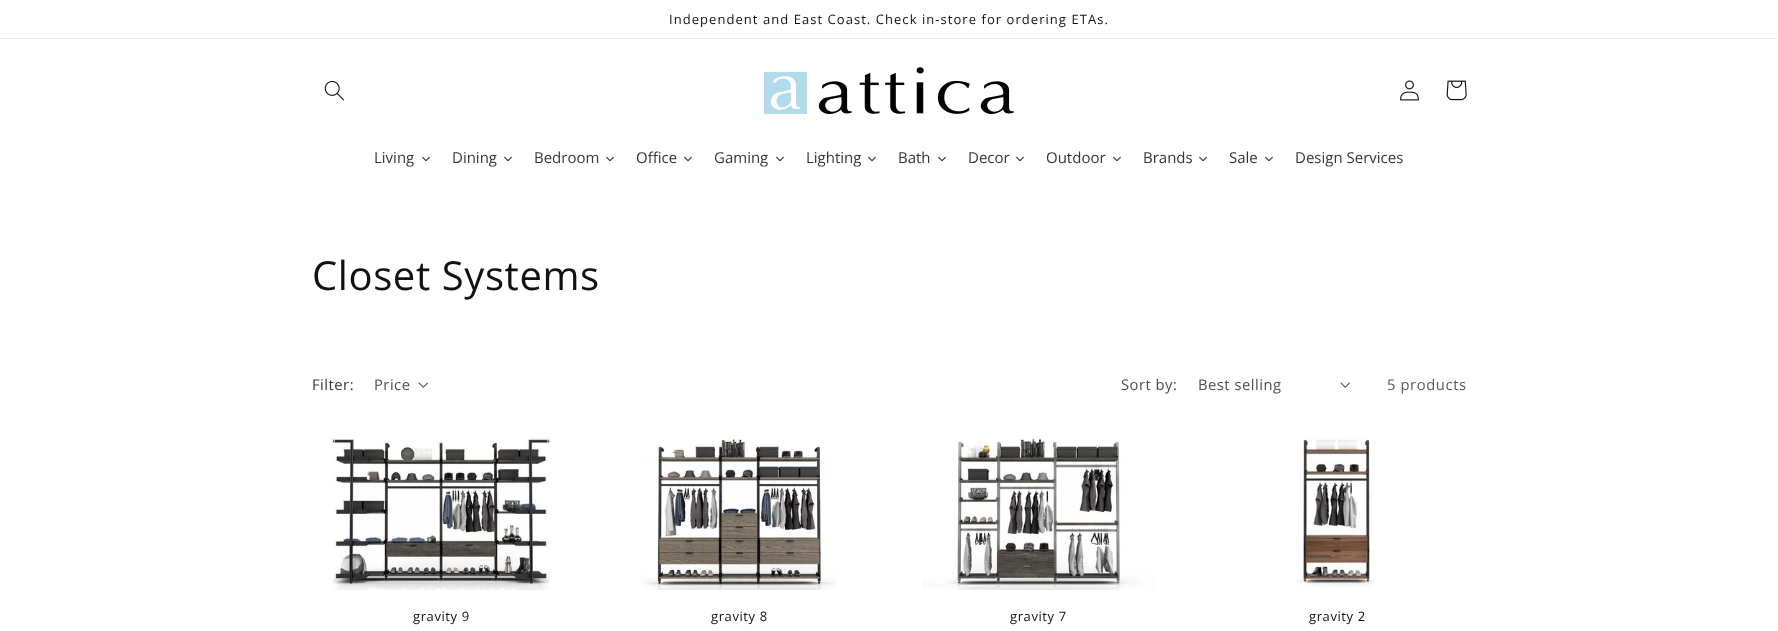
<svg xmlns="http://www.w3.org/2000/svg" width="1778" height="631">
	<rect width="100%" height="100%" fill="#FFFFFF" />
	<rect x="0" y="38" width="1778" height="1" fill="#ECECEC" />
	<text x="669" y="24" font-family="Open Sans" font-size="13" letter-spacing="1.05" fill="#121212">Independent and East Coast. Check in-store for ordering ETAs.</text>
	<image x="324" y="80" width="20" height="21" href="assets/img1.png" />
	<image x="764" y="67" width="250" height="47" href="assets/img2.png" />
	<image x="1400" y="80" width="19" height="21" href="assets/img3.png" />
	<image x="1446" y="80" width="21" height="21" href="assets/img4.png" />
	<text x="374" y="163" font-family="Open Sans" font-size="15" fill="#363636">Living</text>
	<image x="422" y="156" width="8" height="6" href="assets/img5.png" />
	<text x="452" y="163" font-family="Open Sans" font-size="15" fill="#363636">Dining</text>
	<image x="504" y="156" width="8" height="6" href="assets/img5.png" />
	<text x="534" y="163" font-family="Open Sans" font-size="15" fill="#363636">Bedroom</text>
	<image x="606" y="156" width="8" height="6" href="assets/img5.png" />
	<text x="636" y="163" font-family="Open Sans" font-size="15" fill="#363636">Office</text>
	<image x="684" y="156" width="8" height="6" href="assets/img5.png" />
	<text x="714" y="163" font-family="Open Sans" font-size="15" fill="#363636">Gaming</text>
	<image x="776" y="156" width="8" height="6" href="assets/img5.png" />
	<text x="806" y="163" font-family="Open Sans" font-size="15" fill="#363636">Lighting</text>
	<image x="868" y="156" width="8" height="6" href="assets/img5.png" />
	<text x="898" y="163" font-family="Open Sans" font-size="15" fill="#363636">Bath</text>
	<image x="938" y="156" width="8" height="6" href="assets/img5.png" />
	<text x="968" y="163" font-family="Open Sans" font-size="15" fill="#363636">Decor</text>
	<image x="1016" y="156" width="8" height="6" href="assets/img5.png" />
	<text x="1046" y="163" font-family="Open Sans" font-size="15" fill="#363636">Outdoor</text>
	<image x="1113" y="156" width="8" height="6" href="assets/img5.png" />
	<text x="1143" y="163" font-family="Open Sans" font-size="15" fill="#363636">Brands</text>
	<image x="1199" y="156" width="8" height="6" href="assets/img5.png" />
	<text x="1229" y="163" font-family="Open Sans" font-size="15" fill="#363636">Sale</text>
	<image x="1265" y="156" width="8" height="6" href="assets/img5.png" />
	<text x="1295" y="163" font-family="Open Sans" font-size="15" fill="#363636">Design Services</text>
	<text x="312" y="290" font-family="Open Sans" font-size="40" letter-spacing="0.6" fill="#121212">Closet Systems</text>
	<text x="312" y="390" font-family="Open Sans" font-size="14.75" letter-spacing="0.5" fill="#363636">Filter:</text>
	<text x="374" y="390" font-family="Open Sans" font-size="14.75" letter-spacing="0.5" fill="#4D4D4D">Price</text>
	<image x="418" y="382" width="10" height="6" href="assets/img6.png" />
	<g font-family="Open Sans" font-size="14.75" letter-spacing="0.5" fill="#4D4D4D">
		<text x="1121" y="390">Sort by:</text>
		<text x="1198" y="390">Best selling</text>
	</g>
	<image x="1340" y="382" width="10" height="6" href="assets/img6.png" />
	<text x="1387" y="390" font-family="Open Sans" font-size="14.75" letter-spacing="0.6" fill="#595959">5 products</text>
	<image x="330" y="437" width="220" height="153" href="assets/img7.png" />
	<text x="413" y="621" font-family="Open Sans" font-size="13" letter-spacing="0.6" fill="#121212">gravity 9</text>
	<image x="640" y="439" width="197" height="151" href="assets/img8.png" />
	<text x="711" y="621" font-family="Open Sans" font-size="13" letter-spacing="0.6" fill="#121212">gravity 8</text>
	<image x="922" y="437" width="233" height="153" href="assets/img9.png" />
	<text x="1010" y="621" font-family="Open Sans" font-size="13" letter-spacing="0.6" fill="#121212">gravity 7</text>
	<image x="1295" y="438" width="80" height="150" href="assets/img10.png" />
	<text x="1309" y="621" font-family="Open Sans" font-size="13" letter-spacing="0.6" fill="#121212">gravity 2</text>
</svg>
